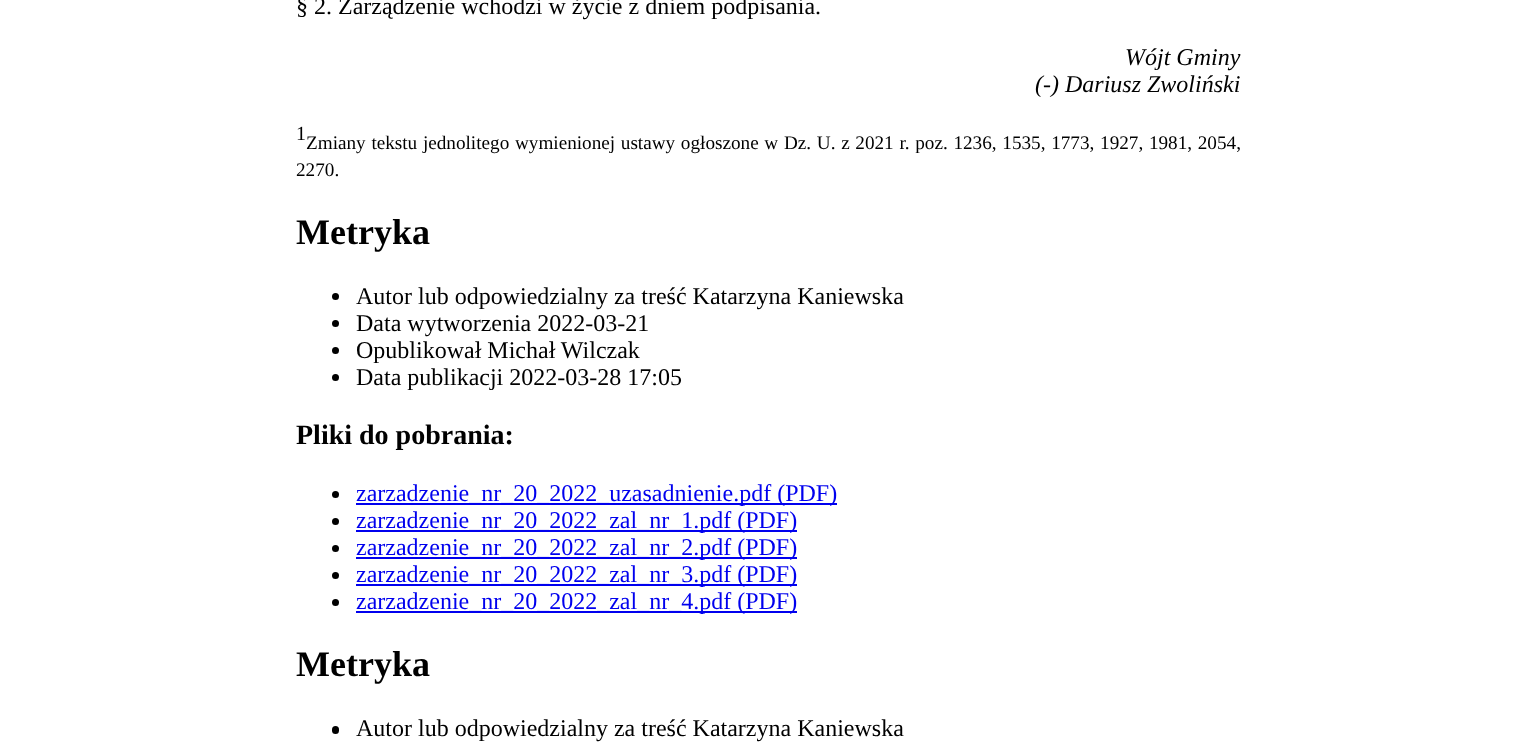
<svg xmlns="http://www.w3.org/2000/svg" width="1536" height="748">
	<rect width="100%" height="100%" fill="#FFFFFF" />
	<text x="296" y="14" font-family="Liberation Serif" font-size="24" fill="#000000">§ 2. Zarządzenie wchodzi w życie z dniem podpisania.</text>
	<g font-family="Liberation Serif" font-size="24" font-style="italic" fill="#000000">
		<text x="1125" y="65">Wójt Gminy</text>
		<text x="1035" y="92">(-) Dariusz Zwoliński</text>
	</g>
	<text x="296" y="140" font-family="Liberation Serif" font-size="20" fill="#000000">1</text>
	<g font-family="Liberation Serif" font-size="19.2" fill="#000000">
		<text x="306" y="149" word-spacing="0.9">Zmiany tekstu jednolitego wymienionej ustawy ogłoszone w Dz. U. z 2021 r. poz. 1236, 1535, 1773, 1927, 1981, 2054,</text>
		<text x="296" y="176">2270.</text>
	</g>
	<text x="296" y="244" font-family="Liberation Serif" font-size="36" font-weight="700" fill="#000000">Metryka</text>
	<circle cx="335.5" cy="296.5" r="3.5" fill="#000000" />
	<text x="356" y="304" font-family="Liberation Serif" font-size="24" fill="#000000">Autor lub odpowiedzialny za treść Katarzyna Kaniewska</text>
	<circle cx="335.5" cy="323.5" r="3.5" fill="#000000" />
	<text x="356" y="331" font-family="Liberation Serif" font-size="24" fill="#000000">Data wytworzenia 2022-03-21</text>
	<circle cx="335.5" cy="350.5" r="3.5" fill="#000000" />
	<text x="356" y="358" font-family="Liberation Serif" font-size="24" fill="#000000">Opublikował Michał Wilczak</text>
	<circle cx="335.5" cy="377.5" r="3.5" fill="#000000" />
	<text x="356" y="385" font-family="Liberation Serif" font-size="24" fill="#000000">Data publikacji 2022-03-28 17:05</text>
	<text x="296" y="444" font-family="Liberation Serif" font-size="28" font-weight="700" fill="#000000">Pliki do pobrania:</text>
	<circle cx="335.5" cy="494.5" r="3.5" fill="#000000" />
	<rect x="356" y="503" width="481" height="2" fill="#0000EE" />
	<text x="356" y="501" font-family="Liberation Serif" font-size="24" fill="#0000EE">zarzadzenie_nr_20_2022_uzasadnienie.pdf (PDF)</text>
	<circle cx="335.5" cy="521.5" r="3.5" fill="#000000" />
	<rect x="356" y="530" width="441" height="2" fill="#0000EE" />
	<text x="356" y="528" font-family="Liberation Serif" font-size="24" fill="#0000EE">zarzadzenie_nr_20_2022_zal_nr_1.pdf (PDF)</text>
	<circle cx="335.5" cy="548.5" r="3.5" fill="#000000" />
	<rect x="356" y="557" width="441" height="2" fill="#0000EE" />
	<text x="356" y="555" font-family="Liberation Serif" font-size="24" fill="#0000EE">zarzadzenie_nr_20_2022_zal_nr_2.pdf (PDF)</text>
	<circle cx="335.5" cy="575.5" r="3.5" fill="#000000" />
	<rect x="356" y="584" width="441" height="2" fill="#0000EE" />
	<text x="356" y="582" font-family="Liberation Serif" font-size="24" fill="#0000EE">zarzadzenie_nr_20_2022_zal_nr_3.pdf (PDF)</text>
	<circle cx="335.5" cy="602.5" r="3.5" fill="#000000" />
	<rect x="356" y="611" width="441" height="2" fill="#0000EE" />
	<text x="356" y="609" font-family="Liberation Serif" font-size="24" fill="#0000EE">zarzadzenie_nr_20_2022_zal_nr_4.pdf (PDF)</text>
	<text x="296" y="676" font-family="Liberation Serif" font-size="36" font-weight="700" fill="#000000">Metryka</text>
	<rect x="332" y="726" width="7" height="8" rx="3.5" fill="#000000" />
	<text x="356" y="736" font-family="Liberation Serif" font-size="24" fill="#000000">Autor lub odpowiedzialny za treść Katarzyna Kaniewska</text>
</svg>
